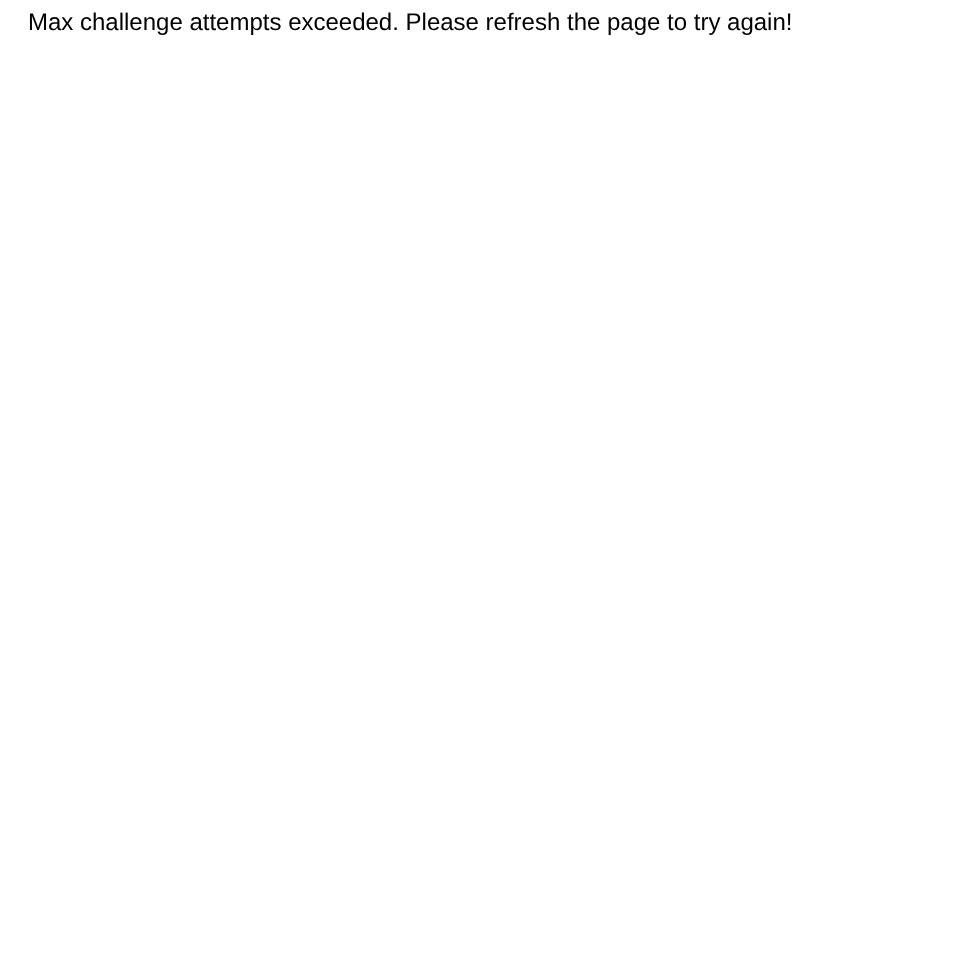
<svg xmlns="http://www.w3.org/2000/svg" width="971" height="966">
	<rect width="100%" height="100%" fill="#FFFFFF" />
	<text x="28" y="30" font-family="Liberation Sans" font-size="24" fill="#000000">Max challenge attempts exceeded. Please refresh the page to try again!</text>
</svg>
